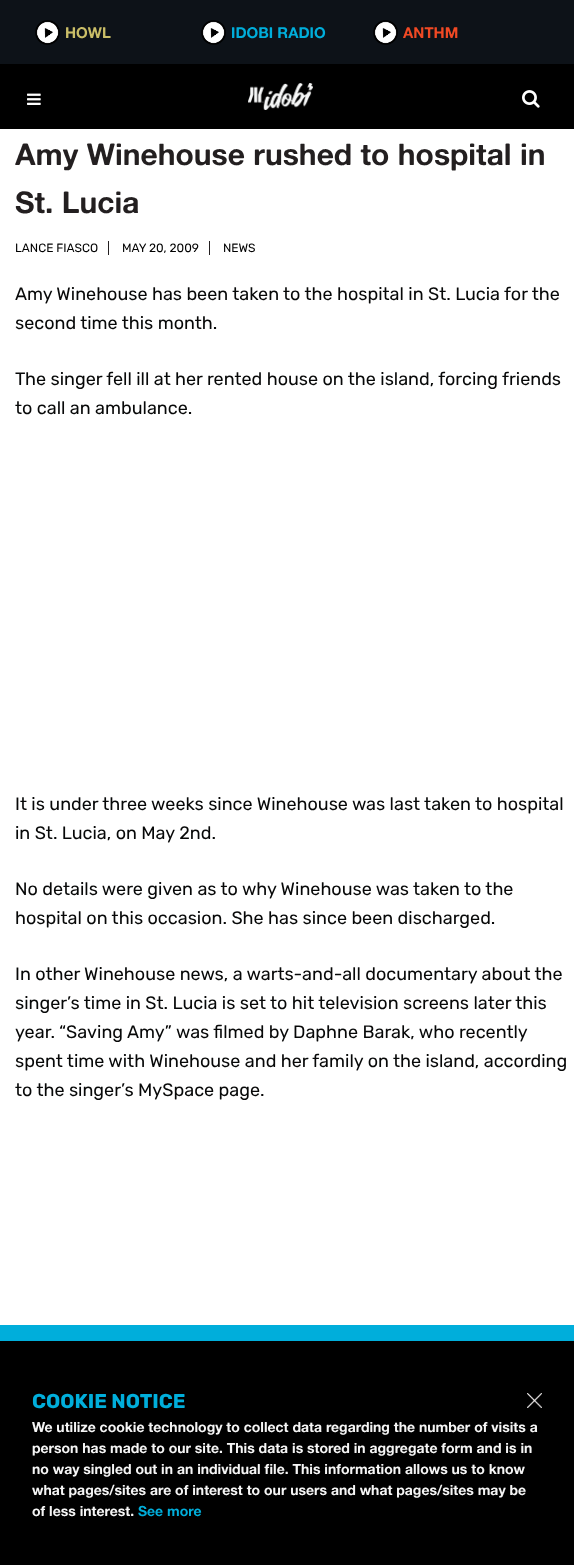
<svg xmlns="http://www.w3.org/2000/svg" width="574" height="1565">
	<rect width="100%" height="100%" fill="#FFFFFF" />
	<rect x="0" y="64" width="574" height="65" fill="#000000" />
	<rect x="0" y="0" width="574" height="64" fill="#0D1218" />
	<image x="35" y="20" width="25" height="25" href="assets/img1.png" />
	<text x="65" y="38" font-family="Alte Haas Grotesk" font-size="15" font-weight="700" fill="#CABE68">HOWL</text>
	<image x="201" y="20" width="25" height="25" href="assets/img2.png" />
	<text x="231" y="38" font-family="Alte Haas Grotesk" font-size="15" font-weight="700" fill="#00AEDB">IDOBI RADIO</text>
	<image x="373" y="20" width="25" height="25" href="assets/img2.png" />
	<text x="403" y="38" font-family="Alte Haas Grotesk" font-size="15" font-weight="700" fill="#F04924">ANTHM</text>
	<image x="27" y="93" width="14" height="12" href="assets/img3.png" />
	<image x="248" y="83" width="65" height="27" href="assets/img4.png" />
	<image x="522" y="90" width="18" height="18" href="assets/img5.png" />
	<g font-family="Alte Haas Grotesk" font-size="30" font-weight="700" fill="#231F20">
		<text x="15" y="165">Amy Winehouse rushed to hospital in</text>
		<text x="15" y="213">St. Lucia</text>
	</g>
	<rect x="108" y="241" width="1" height="14" fill="#231F20" />
	<text x="15" y="252" font-family="Rubik" font-size="12" fill="#000000">LANCE FIASCO</text>
	<rect x="209" y="241" width="1" height="14" fill="#231F20" />
	<g font-family="Rubik" font-size="12" fill="#000000">
		<text x="122" y="252">MAY 20, 2009</text>
		<text x="223" y="252">NEWS</text>
	</g>
	<g font-family="Rubik" font-size="18" fill="#070808">
		<text x="15" y="300">Amy Winehouse has been taken to the hospital in St. Lucia for the</text>
		<text x="15" y="329">second time this month.</text>
		<text x="15" y="385">The singer fell ill at her rented house on the island, forcing friends</text>
		<text x="15" y="414">to call an ambulance.</text>
		<text x="15" y="810">It is under three weeks since Winehouse was last taken to hospital</text>
		<text x="15" y="839">in St. Lucia, on May 2nd.</text>
		<text x="15" y="895">No details were given as to why Winehouse was taken to the</text>
		<text x="15" y="924">hospital on this occasion. She has since been discharged.</text>
		<text x="15" y="980">In other Winehouse news, a warts-and-all documentary about the</text>
		<text x="15" y="1009">singer’s time in St. Lucia is set to hit television screens later this</text>
		<text x="15" y="1038">year.</text>
		<text x="59" y="1038">“Saving Amy”</text>
		<text x="176" y="1038">was filmed by</text>
		<text x="293" y="1038">Daphne Barak, who recently</text>
		<text x="15" y="1067">spent time with Winehouse and her family on the island, according</text>
		<text x="15" y="1096">to the singer’s MySpace page.</text>
	</g>
	<rect x="0" y="1341" width="574" height="224" fill="#000000" />
	<rect x="0" y="1325" width="574" height="16" fill="#00AEDB" />
	<text x="32" y="1408" font-family="Rubik" font-size="20" font-weight="700" fill="#00AEDB">COOKIE NOTICE</text>
	<image x="527" y="1393" width="15" height="15" href="assets/img6.png" />
	<g font-family="Alte Haas Grotesk" font-size="14" font-weight="700" fill="#F5F5F5">
		<text x="32" y="1432">We utilize cookie technology to collect data regarding the number of visits a</text>
		<text x="32" y="1453">person has made to our site. This data is stored in aggregate form and is in</text>
		<text x="32" y="1474">no way singled out in an individual file. This information allows us to know</text>
		<text x="32" y="1495">what pages/sites are of interest to our users and what pages/sites may be</text>
		<text x="32" y="1516">of less interest.</text>
	</g>
	<text x="138" y="1516" font-family="Alte Haas Grotesk" font-size="14" font-weight="700" fill="#00AEDB">See more</text>
</svg>
